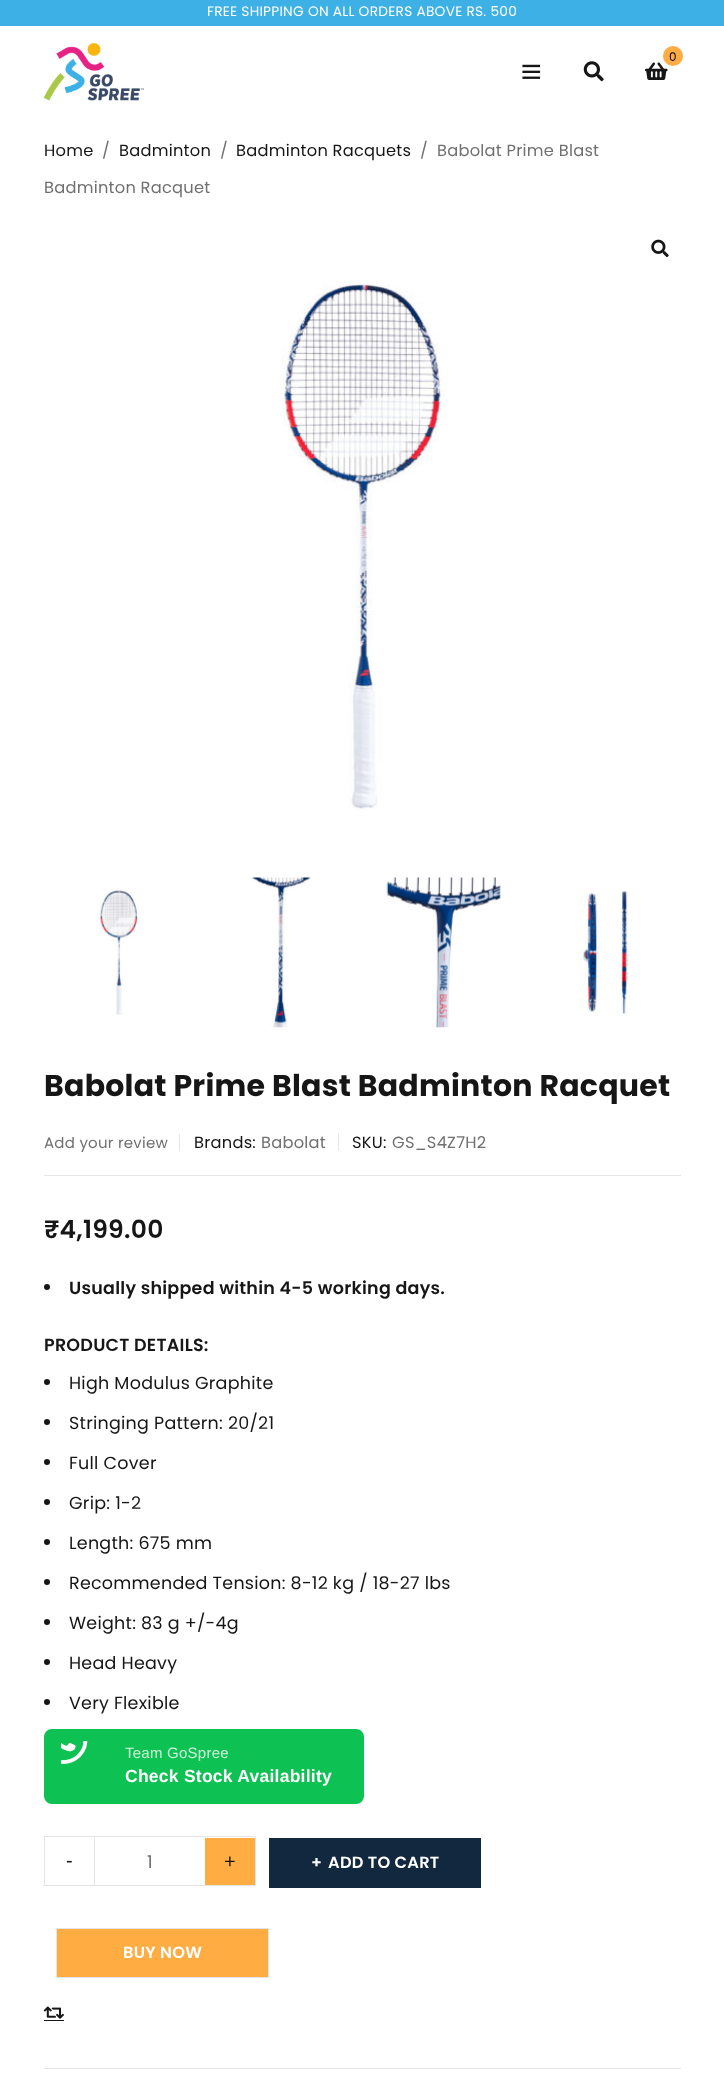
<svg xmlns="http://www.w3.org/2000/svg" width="724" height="2082">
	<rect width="100%" height="100%" fill="#FFFFFF" />
	<rect x="0" y="0" width="724" height="26" fill="#3DB0E6" />
	<text x="207" y="16" font-family="Poppins" font-size="13.75" letter-spacing="0.25" fill="#FFFFFF">FREE SHIPPING ON ALL ORDERS ABOVE RS. 500</text>
	<image x="43" y="42" width="101" height="59" href="assets/img1.png" />
	<image x="645" y="62" width="23" height="18" href="assets/img2.png" />
	<circle cx="673" cy="56" r="10" fill="#FFAC43" />
	<text x="669" y="61" font-family="Poppins" font-size="12" fill="#000000">0</text>
	<image x="522" y="64" width="19" height="15" href="assets/img3.png" />
	<image x="583" y="61" width="21" height="21" href="assets/img4.png" />
	<text x="44" y="156" font-family="Poppins" font-size="16.25" letter-spacing="0.25" fill="#161616">Home</text>
	<text x="102" y="156" font-family="Poppins" font-size="16.25" letter-spacing="0.25" fill="#707070">/</text>
	<text x="119" y="156" font-family="Poppins" font-size="16.25" letter-spacing="0.25" fill="#161616">Badminton</text>
	<text x="220" y="156" font-family="Poppins" font-size="16.25" letter-spacing="0.25" fill="#707070">/</text>
	<text x="236" y="156" font-family="Poppins" font-size="16.25" letter-spacing="0.25" fill="#161616">Badminton Racquets</text>
	<g font-family="Poppins" font-size="16.25" letter-spacing="0.25" fill="#707070">
		<text x="420" y="156">/</text>
		<text x="437" y="156">Babolat Prime Blast</text>
		<text x="44" y="193">Badminton Racquet</text>
	</g>
	<image x="651" y="239" width="18" height="19" href="assets/img5.png" />
	<image x="282" y="283" width="165" height="527" href="assets/img6.png" />
	<image x="99" y="890" width="41" height="125" href="assets/img7.png" />
	<image x="251" y="877" width="60" height="151" href="assets/img8.png" />
	<image x="385" y="877" width="116" height="151" href="assets/img9.png" />
	<image x="582" y="890" width="46" height="124" href="assets/img10.png" />
	<text x="44" y="1096" font-family="Poppins" font-size="30" font-weight="700" letter-spacing="0.25" fill="#161616">Babolat Prime Blast Badminton Racquet</text>
	<rect x="44" y="1175" width="637" height="1" fill="#E5E5E5" />
	<text x="44" y="1148" font-family="Poppins" font-size="15" letter-spacing="0.25" fill="#707070">Add your review</text>
	<rect x="179" y="1134" width="1" height="17" fill="#E5E5E5" />
	<text x="194" y="1148" font-family="Poppins" font-size="16.25" letter-spacing="0.25" fill="#161616">Brands:</text>
	<text x="261" y="1148" font-family="Poppins" font-size="16.25" letter-spacing="0.25" fill="#707070">Babolat</text>
	<rect x="338" y="1134" width="1" height="17" fill="#E5E5E5" />
	<text x="352" y="1148" font-family="Poppins" font-size="16.25" letter-spacing="0.25" fill="#161616">SKU:</text>
	<text x="392" y="1148" font-family="Poppins" font-size="16.25" letter-spacing="0.25" fill="#707070">GS_S4Z7H2</text>
	<text x="44" y="1238" font-family="Poppins" font-size="25" font-weight="600" letter-spacing="0.25" fill="#161616">₹4,199.00</text>
	<circle cx="47" cy="1287" r="3" fill="#161616" />
	<g font-family="Poppins" font-size="17.5" font-weight="600" letter-spacing="0.25" fill="#161616">
		<text x="69" y="1294">Usually shipped within 4-5 working days.</text>
		<text x="44" y="1351">PRODUCT DETAILS:</text>
	</g>
	<circle cx="47" cy="1382" r="3" fill="#161616" />
	<text x="69" y="1389" font-family="Poppins" font-size="17.5" letter-spacing="0.25" fill="#161616">High Modulus Graphite</text>
	<circle cx="47" cy="1422" r="3" fill="#161616" />
	<text x="69" y="1429" font-family="Poppins" font-size="17.5" letter-spacing="0.25" fill="#161616">Stringing Pattern: 20/21</text>
	<circle cx="47" cy="1462" r="3" fill="#161616" />
	<text x="69" y="1469" font-family="Poppins" font-size="17.5" letter-spacing="0.25" fill="#161616">Full Cover</text>
	<circle cx="47" cy="1502" r="3" fill="#161616" />
	<text x="69" y="1509" font-family="Poppins" font-size="17.5" letter-spacing="0.25" fill="#161616">Grip: 1-2</text>
	<circle cx="47" cy="1542" r="3" fill="#161616" />
	<text x="69" y="1549" font-family="Poppins" font-size="17.5" letter-spacing="0.25" fill="#161616">Length: 675 mm</text>
	<circle cx="47" cy="1582" r="3" fill="#161616" />
	<text x="69" y="1589" font-family="Poppins" font-size="17.5" letter-spacing="0.25" fill="#161616">Recommended Tension: 8-12 kg / 18-27 lbs</text>
	<circle cx="47" cy="1622" r="3" fill="#161616" />
	<text x="69" y="1629" font-family="Poppins" font-size="17.5" letter-spacing="0.25" fill="#161616">Weight: 83 g +/-4g</text>
	<circle cx="47" cy="1662" r="3" fill="#161616" />
	<text x="69" y="1669" font-family="Poppins" font-size="17.5" letter-spacing="0.25" fill="#161616">Head Heavy</text>
	<circle cx="47" cy="1702" r="3" fill="#161616" />
	<text x="69" y="1709" font-family="Poppins" font-size="17.5" letter-spacing="0.25" fill="#161616">Very Flexible</text>
	<rect x="44" y="1729" width="320" height="75" rx="8" fill="#0DC152" />
	<image x="61" y="1741" width="27" height="23" href="assets/img11.png" />
	<text x="125" y="1758" font-family="Liberation Sans" font-size="15" letter-spacing="0.25" fill="#CFF3DC">Team GoSpree</text>
	<text x="125" y="1782" font-family="Liberation Sans" font-size="17.5" font-weight="700" letter-spacing="0.25" fill="#FFFFFF">Check Stock Availability</text>
	<rect x="44.5" y="1836.5" width="211" height="49" fill="none" stroke="#E5E5E5" />
	<rect x="94" y="1838" width="1" height="47" fill="#E5E5E5" />
	<text x="66" y="1867" font-family="Liberation Sans" font-size="20" letter-spacing="0.25" fill="#161616">-</text>
	<text x="147" y="1868" font-family="Poppins" font-size="17.5" letter-spacing="0.25" fill="#707070">1</text>
	<rect x="205" y="1838" width="50" height="47" fill="#FFAC43" />
	<text x="224" y="1868" font-family="Liberation Sans" font-size="20" letter-spacing="0.25" fill="#161616">+</text>
	<rect x="269" y="1838" width="212" height="50" fill="#12283F" />
	<g font-family="Poppins" font-size="16.25" font-weight="600" letter-spacing="0.25" fill="#FFFFFF">
		<text x="311" y="1868">+</text>
		<text x="328" y="1868">ADD TO CART</text>
	</g>
	<rect x="56.5" y="1928.5" width="212" height="49" fill="#FFAC43" stroke="#E5E5E5" />
	<text x="123" y="1958" font-family="Poppins" font-size="16.25" font-weight="600" letter-spacing="0.25" fill="#FFFFFF">BUY NOW</text>
	<image x="43" y="2006" width="21" height="13" href="assets/img12.png" />
	<rect x="44" y="2020" width="20" height="1" fill="#161616" />
	<rect x="44" y="2068" width="637" height="1" fill="#E5E5E5" />
</svg>
